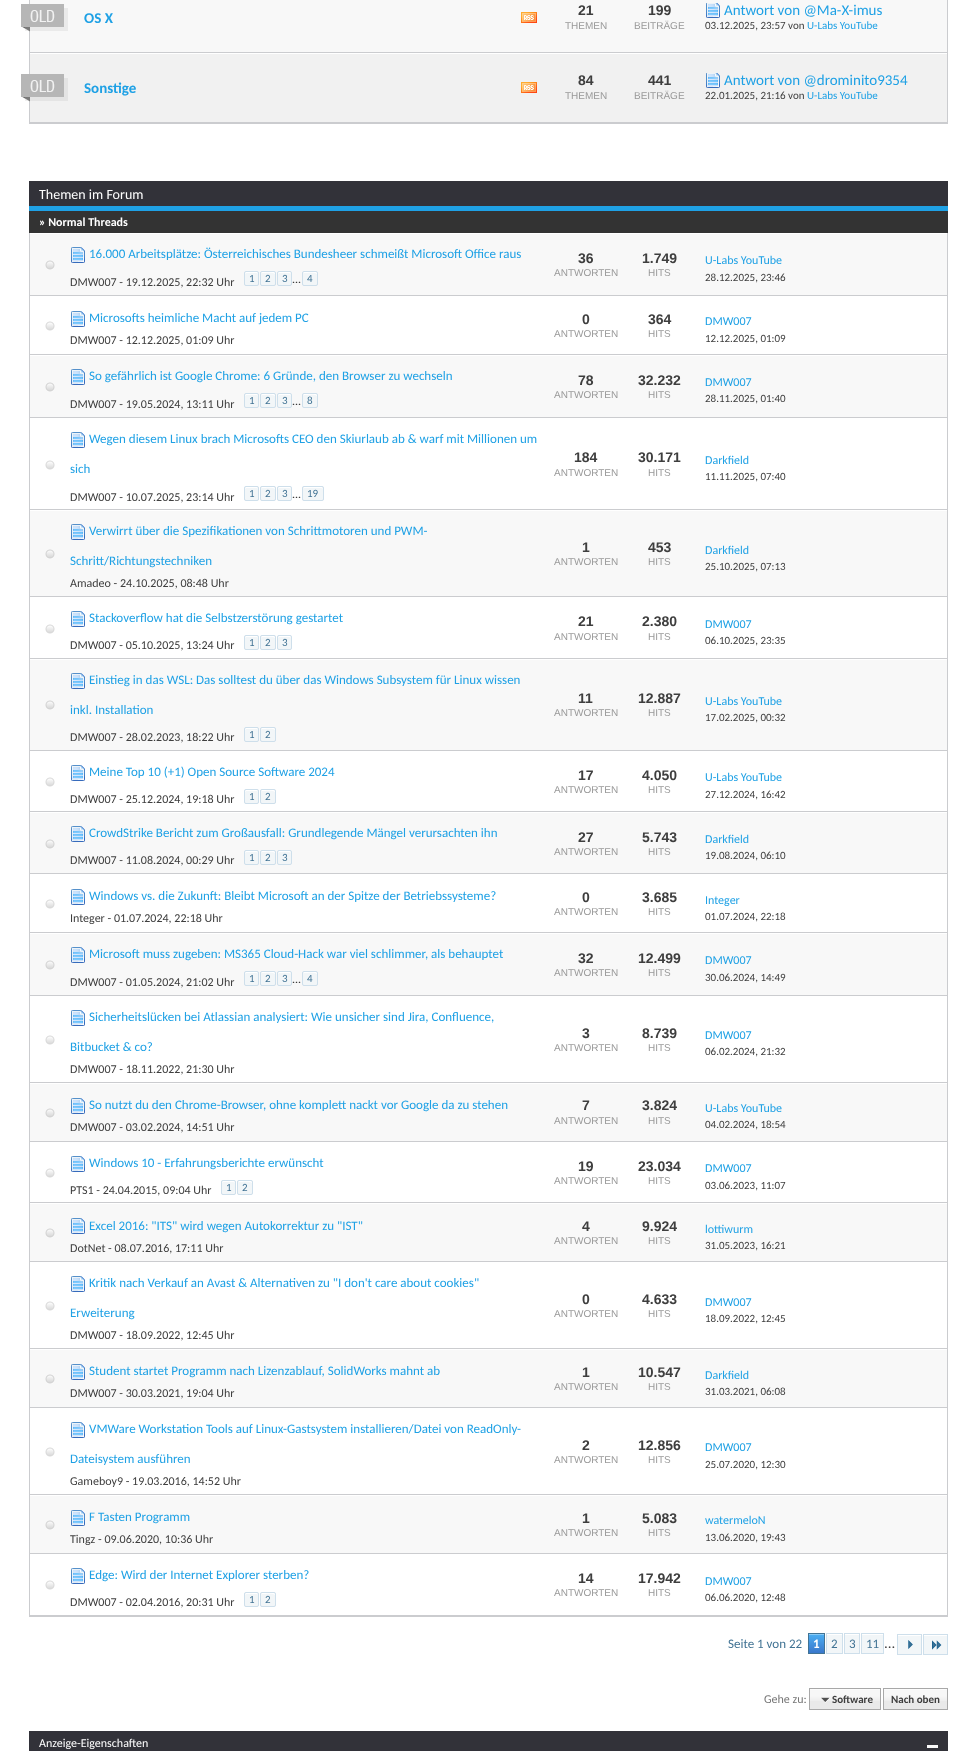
<svg xmlns="http://www.w3.org/2000/svg" width="977" height="1751">
	<defs>
		<linearGradient id="g1" gradientUnits="userSpaceOnUse" x1="817" y1="1634" x2="817" y2="1653"><stop offset="0" stop-color="#4BAFF3" /><stop offset="1" stop-color="#3977CB" /></linearGradient>
	</defs>
	<rect width="100%" height="100%" fill="#FFFFFF" />
	<rect x="947" y="0" width="1" height="124" fill="#CBCCCF" />
	<rect x="29" y="123" width="919" height="1" fill="#CBCCCF" />
	<rect x="29" y="0" width="1" height="124" fill="#CBCCCF" />
	<rect x="30" y="0" width="917" height="52" fill="#F8F8F8" />
	<rect x="30" y="52" width="917" height="1" fill="#CBCCCF" />
	<image x="21" y="4" width="47" height="28" href="assets/img1.png" />
	<text x="84" y="23" font-family="Carlito" font-size="15" font-weight="700" fill="#1FA1E5">OS X</text>
	<image x="521" y="12" width="16" height="11" href="assets/img2.png" />
	<text x="578" y="15" font-family="Liberation Sans" font-size="14" font-weight="700" fill="#3E3E3E">21</text>
	<text x="565" y="29" font-family="Liberation Sans" font-size="10" fill="#999999">THEMEN</text>
	<text x="648" y="15" font-family="Liberation Sans" font-size="14" font-weight="700" fill="#3E3E3E">199</text>
	<text x="634" y="29" font-family="Liberation Sans" font-size="10" fill="#999999">BEITRÄGE</text>
	<image x="706" y="3" width="14" height="15" href="assets/img3.png" />
	<text x="724" y="15" font-family="Carlito" font-size="15" fill="#1FA1E5">Antwort von @Ma-X-imus</text>
	<text x="705" y="29" font-family="Carlito" font-size="11" fill="#3E3E3E">03.12.2025, 23:57 von</text>
	<text x="807" y="29" font-family="Carlito" font-size="11" fill="#1FA1E5">U-Labs YouTube</text>
	<rect x="30" y="54" width="917" height="68" fill="#F1F1F1" />
	<rect x="30" y="122" width="917" height="1" fill="#CBCCCF" />
	<image x="21" y="74" width="47" height="28" href="assets/img4.png" />
	<text x="84" y="93" font-family="Carlito" font-size="15" font-weight="700" fill="#1FA1E5">Sonstige</text>
	<image x="521" y="82" width="16" height="11" href="assets/img2.png" />
	<text x="578" y="85" font-family="Liberation Sans" font-size="14" font-weight="700" fill="#3E3E3E">84</text>
	<text x="565" y="99" font-family="Liberation Sans" font-size="10" fill="#999999">THEMEN</text>
	<text x="648" y="85" font-family="Liberation Sans" font-size="14" font-weight="700" fill="#3E3E3E">441</text>
	<text x="634" y="99" font-family="Liberation Sans" font-size="10" fill="#999999">BEITRÄGE</text>
	<image x="706" y="73" width="14" height="15" href="assets/img5.png" />
	<text x="724" y="85" font-family="Carlito" font-size="15" fill="#1FA1E5">Antwort von @drominito9354</text>
	<text x="705" y="99" font-family="Carlito" font-size="11" fill="#3E3E3E">22.01.2025, 21:16 von</text>
	<text x="807" y="99" font-family="Carlito" font-size="11" fill="#1FA1E5">U-Labs YouTube</text>
	<rect x="29" y="181" width="919" height="25" fill="#323239" />
	<rect x="29" y="206" width="919" height="5" fill="#1FA1E5" />
	<text x="39" y="199" font-family="Carlito" font-size="14" fill="#FFFFFF">Themen im Forum</text>
	<rect x="29" y="211" width="919" height="22" fill="#333333" />
	<text x="39" y="226" font-family="Carlito" font-size="12" font-weight="700" fill="#FFFFFF">» Normal Threads</text>
	<rect x="947" y="233" width="1" height="1384" fill="#CBCCCF" />
	<rect x="29" y="1616" width="919" height="1" fill="#CBCCCF" />
	<rect x="29" y="233" width="1" height="1384" fill="#CBCCCF" />
	<rect x="30" y="234" width="917" height="61" fill="#F8F8F8" />
	<image x="71" y="247" width="14" height="16" href="assets/img6.png" />
	<text x="89" y="258" font-family="Carlito" font-size="13" fill="#1FA1E5">16.000 Arbeitsplätze: Österreichisches Bundesheer schmeißt Microsoft Office raus</text>
	<text x="70" y="286" font-family="Carlito" font-size="12" fill="#3E3E3E">DMW007 - 19.12.2025, 22:32 Uhr</text>
	<rect x="244" y="271" width="15" height="15" rx="2" fill="#F2F6F8" />
	<path d="M246 273C248 273 256.5 272.5 258 273.5C258 271.5 257 272 255 272H248C244.5 272 245 272 245 275C245 274 245.5 273 246 273Z" fill="#FFFFFF" />
	<rect x="244.5" y="271.5" width="14" height="14" rx="1.5" fill="none" stroke="#CEDFEB" />
	<text x="249" y="282" font-family="Carlito" font-size="11" fill="#417394">1</text>
	<rect x="260" y="271" width="16" height="15" rx="2" fill="#F2F6F8" />
	<path d="M262 273C264.5 273 274 272 275 274C275 271.5 274.5 272 272 272H264C261.5 272 261 271.5 261 274C261 273.5 261.5 273 262 273ZM275 281V284.5ZM261 284.5V281Z" fill="#FFFFFF" fill-rule="evenodd" />
	<rect x="260.5" y="271.5" width="15" height="14" rx="1.5" fill="none" stroke="#CEDFEB" />
	<text x="265" y="282" font-family="Carlito" font-size="11" fill="#417394">2</text>
	<rect x="277" y="271" width="15" height="15" rx="2" fill="#F2F6F8" />
	<path d="M279 273C281 273 289.5 272.5 291 273.5C291 271.5 290 272 288 272H281C277.5 272 278 272 278 275C278 274 278.5 273 279 273Z" fill="#FFFFFF" />
	<rect x="277.5" y="271.5" width="14" height="14" rx="1.5" fill="none" stroke="#CEDFEB" />
	<text x="282" y="282" font-family="Carlito" font-size="11" fill="#417394">3</text>
	<rect x="302" y="271" width="16" height="15" rx="2" fill="#F2F6F8" />
	<path d="M304 273C306.5 273 316 272 317 274C317 271.5 316.5 272 314 272H306C303.5 272 303 271.5 303 274C303 273.5 303.5 273 304 273ZM317 281V284.5ZM303 284.5V281Z" fill="#FFFFFF" fill-rule="evenodd" />
	<rect x="302.5" y="271.5" width="15" height="14" rx="1.5" fill="none" stroke="#CEDFEB" />
	<text x="307" y="282" font-family="Carlito" font-size="11" fill="#417394">4</text>
	<text x="292" y="283" font-family="Carlito" font-size="12" fill="#3E3E3E">...</text>
	<text x="578" y="263" font-family="Liberation Sans" font-size="14" font-weight="700" fill="#3E3E3E">36</text>
	<text x="554" y="276" font-family="Liberation Sans" font-size="10" fill="#999999">ANTWORTEN</text>
	<text x="642" y="263" font-family="Liberation Sans" font-size="14" font-weight="700" fill="#3E3E3E">1.749</text>
	<text x="648" y="276" font-family="Liberation Sans" font-size="10" fill="#999999">HITS</text>
	<text x="705" y="264" font-family="Carlito" font-size="12" fill="#1FA1E5">U-Labs YouTube</text>
	<text x="705" y="281" font-family="Carlito" font-size="11" fill="#3E3E3E">28.12.2025, 23:46</text>
	<rect x="30" y="295" width="917" height="1" fill="#CBCCCF" />
	<image x="45" y="260" width="10" height="10" href="assets/img7.png" />
	<image x="71" y="311" width="14" height="16" href="assets/img8.png" />
	<text x="89" y="322" font-family="Carlito" font-size="13" fill="#1FA1E5">Microsofts heimliche Macht auf jedem PC</text>
	<text x="70" y="344" font-family="Carlito" font-size="12" fill="#3E3E3E">DMW007 - 12.12.2025, 01:09 Uhr</text>
	<text x="582" y="324" font-family="Liberation Sans" font-size="14" font-weight="700" fill="#3E3E3E">0</text>
	<text x="554" y="337" font-family="Liberation Sans" font-size="10" fill="#999999">ANTWORTEN</text>
	<text x="648" y="324" font-family="Liberation Sans" font-size="14" font-weight="700" fill="#3E3E3E">364</text>
	<text x="648" y="337" font-family="Liberation Sans" font-size="10" fill="#999999">HITS</text>
	<text x="705" y="325" font-family="Carlito" font-size="12" fill="#1FA1E5">DMW007</text>
	<text x="705" y="342" font-family="Carlito" font-size="11" fill="#3E3E3E">12.12.2025, 01:09</text>
	<rect x="30" y="354" width="917" height="1" fill="#CBCCCF" />
	<image x="45" y="321" width="10" height="10" href="assets/img9.png" />
	<rect x="30" y="356" width="917" height="61" fill="#F8F8F8" />
	<image x="71" y="369" width="14" height="16" href="assets/img6.png" />
	<text x="89" y="380" font-family="Carlito" font-size="13" fill="#1FA1E5">So gefährlich ist Google Chrome: 6 Gründe, den Browser zu wechseln</text>
	<text x="70" y="408" font-family="Carlito" font-size="12" fill="#3E3E3E">DMW007 - 19.05.2024, 13:11 Uhr</text>
	<rect x="244" y="393" width="15" height="15" rx="2" fill="#F2F6F8" />
	<path d="M246 395C248 395 256.5 394.5 258 395.5C258 393.5 257 394 255 394H248C244.5 394 245 394 245 397C245 396 245.5 395 246 395Z" fill="#FFFFFF" />
	<rect x="244.5" y="393.5" width="14" height="14" rx="1.5" fill="none" stroke="#CEDFEB" />
	<text x="249" y="404" font-family="Carlito" font-size="11" fill="#417394">1</text>
	<rect x="260" y="393" width="16" height="15" rx="2" fill="#F2F6F8" />
	<path d="M262 395C264.5 395 274 394 275 396C275 393.5 274.5 394 272 394H264C261.5 394 261 393.5 261 396C261 395.5 261.5 395 262 395ZM275 403V406.5ZM261 406.5V403Z" fill="#FFFFFF" fill-rule="evenodd" />
	<rect x="260.5" y="393.5" width="15" height="14" rx="1.5" fill="none" stroke="#CEDFEB" />
	<text x="265" y="404" font-family="Carlito" font-size="11" fill="#417394">2</text>
	<rect x="277" y="393" width="15" height="15" rx="2" fill="#F2F6F8" />
	<path d="M279 395C281 395 289.5 394.5 291 395.5C291 393.5 290 394 288 394H281C277.5 394 278 394 278 397C278 396 278.5 395 279 395Z" fill="#FFFFFF" />
	<rect x="277.5" y="393.5" width="14" height="14" rx="1.5" fill="none" stroke="#CEDFEB" />
	<text x="282" y="404" font-family="Carlito" font-size="11" fill="#417394">3</text>
	<text x="292" y="405" font-family="Carlito" font-size="12" fill="#3E3E3E">...</text>
	<rect x="302" y="393" width="16" height="15" rx="2" fill="#F2F6F8" />
	<path d="M304 395C306.5 395 316 394 317 396C317 393.5 316.5 394 314 394H306C303.5 394 303 393.5 303 396C303 395.5 303.5 395 304 395ZM317 403V406.5ZM303 406.5V403Z" fill="#FFFFFF" fill-rule="evenodd" />
	<rect x="302.5" y="393.5" width="15" height="14" rx="1.5" fill="none" stroke="#CEDFEB" />
	<text x="307" y="404" font-family="Carlito" font-size="11" fill="#417394">8</text>
	<text x="578" y="385" font-family="Liberation Sans" font-size="14" font-weight="700" fill="#3E3E3E">78</text>
	<text x="554" y="398" font-family="Liberation Sans" font-size="10" fill="#999999">ANTWORTEN</text>
	<text x="638" y="385" font-family="Liberation Sans" font-size="14" font-weight="700" fill="#3E3E3E">32.232</text>
	<text x="648" y="398" font-family="Liberation Sans" font-size="10" fill="#999999">HITS</text>
	<text x="705" y="386" font-family="Carlito" font-size="12" fill="#1FA1E5">DMW007</text>
	<text x="705" y="402" font-family="Carlito" font-size="11" fill="#3E3E3E">28.11.2025, 01:40</text>
	<rect x="30" y="417" width="917" height="1" fill="#CBCCCF" />
	<image x="45" y="382" width="10" height="10" href="assets/img7.png" />
	<image x="71" y="432" width="14" height="16" href="assets/img8.png" />
	<g font-family="Carlito" font-size="13" fill="#1FA1E5">
		<text x="89" y="443">Wegen diesem Linux brach Microsofts CEO den Skiurlaub ab &amp; warf mit Millionen um</text>
		<text x="70" y="473">sich</text>
	</g>
	<text x="70" y="501" font-family="Carlito" font-size="12" fill="#3E3E3E">DMW007 - 10.07.2025, 23:14 Uhr</text>
	<rect x="244" y="486" width="15" height="15" rx="2" fill="#F2F6F8" />
	<path d="M246 488C248 488 256.5 487.5 258 488.5C258 486.5 257 487 255 487H248C244.5 487 245 487 245 490C245 489 245.5 488 246 488Z" fill="#FFFFFF" />
	<rect x="244.5" y="486.5" width="14" height="14" rx="1.5" fill="none" stroke="#CEDFEB" />
	<text x="249" y="497" font-family="Carlito" font-size="11" fill="#417394">1</text>
	<rect x="260" y="486" width="16" height="15" rx="2" fill="#F2F6F8" />
	<path d="M262 488C264.5 488 274 487 275 489C275 486.5 274.5 487 272 487H264C261.5 487 261 486.5 261 489C261 488.5 261.5 488 262 488ZM275 496V499.5ZM261 499.5V496Z" fill="#FFFFFF" fill-rule="evenodd" />
	<rect x="260.5" y="486.5" width="15" height="14" rx="1.5" fill="none" stroke="#CEDFEB" />
	<text x="265" y="497" font-family="Carlito" font-size="11" fill="#417394">2</text>
	<rect x="277" y="486" width="15" height="15" rx="2" fill="#F2F6F8" />
	<path d="M279 488C281 488 289.5 487.5 291 488.5C291 486.5 290 487 288 487H281C277.5 487 278 487 278 490C278 489 278.5 488 279 488Z" fill="#FFFFFF" />
	<rect x="277.5" y="486.5" width="14" height="14" rx="1.5" fill="none" stroke="#CEDFEB" />
	<text x="282" y="497" font-family="Carlito" font-size="11" fill="#417394">3</text>
	<rect x="302" y="486" width="22" height="15" rx="2" fill="#F2F6F8" />
	<path d="M304 488C306 488 322 487.5 323 488.5C323 486.5 320.5 487 319 487H307C303.5 487 303 486.5 303 489.5C303 488.5 303.5 488 304 488Z" fill="#FFFFFF" />
	<rect x="302.5" y="486.5" width="21" height="14" rx="1.5" fill="none" stroke="#CEDFEB" />
	<text x="307" y="497" font-family="Carlito" font-size="11" fill="#417394">19</text>
	<text x="292" y="498" font-family="Carlito" font-size="12" fill="#3E3E3E">...</text>
	<text x="574" y="462" font-family="Liberation Sans" font-size="14" font-weight="700" fill="#3E3E3E">184</text>
	<text x="554" y="476" font-family="Liberation Sans" font-size="10" fill="#999999">ANTWORTEN</text>
	<text x="638" y="462" font-family="Liberation Sans" font-size="14" font-weight="700" fill="#3E3E3E">30.171</text>
	<text x="648" y="476" font-family="Liberation Sans" font-size="10" fill="#999999">HITS</text>
	<text x="705" y="464" font-family="Carlito" font-size="12" fill="#1FA1E5">Darkfield</text>
	<text x="705" y="480" font-family="Carlito" font-size="11" fill="#3E3E3E">11.11.2025, 07:40</text>
	<rect x="30" y="509" width="917" height="1" fill="#CBCCCF" />
	<image x="45" y="460" width="10" height="10" href="assets/img9.png" />
	<rect x="30" y="511" width="917" height="85" fill="#F8F8F8" />
	<image x="71" y="524" width="14" height="16" href="assets/img6.png" />
	<g font-family="Carlito" font-size="13" fill="#1FA1E5">
		<text x="89" y="535">Verwirrt über die Spezifikationen von Schrittmotoren und PWM-</text>
		<text x="70" y="565">Schritt/Richtungstechniken</text>
	</g>
	<text x="70" y="587" font-family="Carlito" font-size="12" fill="#3E3E3E">Amadeo - 24.10.2025, 08:48 Uhr</text>
	<text x="582" y="552" font-family="Liberation Sans" font-size="14" font-weight="700" fill="#3E3E3E">1</text>
	<text x="554" y="565" font-family="Liberation Sans" font-size="10" fill="#999999">ANTWORTEN</text>
	<text x="648" y="552" font-family="Liberation Sans" font-size="14" font-weight="700" fill="#3E3E3E">453</text>
	<text x="648" y="565" font-family="Liberation Sans" font-size="10" fill="#999999">HITS</text>
	<text x="705" y="554" font-family="Carlito" font-size="12" fill="#1FA1E5">Darkfield</text>
	<text x="705" y="570" font-family="Carlito" font-size="11" fill="#3E3E3E">25.10.2025, 07:13</text>
	<rect x="30" y="596" width="917" height="1" fill="#CBCCCF" />
	<image x="45" y="549" width="10" height="10" href="assets/img7.png" />
	<image x="71" y="611" width="14" height="16" href="assets/img8.png" />
	<text x="89" y="622" font-family="Carlito" font-size="13" fill="#1FA1E5">Stackoverflow hat die Selbstzerstörung gestartet</text>
	<text x="70" y="649" font-family="Carlito" font-size="12" fill="#3E3E3E">DMW007 - 05.10.2025, 13:24 Uhr</text>
	<rect x="244" y="635" width="15" height="15" rx="2" fill="#F2F6F8" />
	<path d="M246 637C248 637 256.5 636.5 258 637.5C258 635.5 257 636 255 636H248C244.5 636 245 636 245 639C245 638 245.5 637 246 637Z" fill="#FFFFFF" />
	<rect x="244.5" y="635.5" width="14" height="14" rx="1.5" fill="none" stroke="#CEDFEB" />
	<text x="249" y="646" font-family="Carlito" font-size="11" fill="#417394">1</text>
	<rect x="260" y="635" width="16" height="15" rx="2" fill="#F2F6F8" />
	<path d="M262 637C264.5 637 274 636 275 638C275 635.5 274.5 636 272 636H264C261.5 636 261 635.5 261 638C261 637.5 261.5 637 262 637ZM275 645V648.5ZM261 648.5V645Z" fill="#FFFFFF" fill-rule="evenodd" />
	<rect x="260.5" y="635.5" width="15" height="14" rx="1.5" fill="none" stroke="#CEDFEB" />
	<text x="265" y="646" font-family="Carlito" font-size="11" fill="#417394">2</text>
	<rect x="277" y="635" width="15" height="15" rx="2" fill="#F2F6F8" />
	<path d="M279 637C281 637 289.5 636.5 291 637.5C291 635.5 290 636 288 636H281C277.5 636 278 636 278 639C278 638 278.5 637 279 637Z" fill="#FFFFFF" />
	<rect x="277.5" y="635.5" width="14" height="14" rx="1.5" fill="none" stroke="#CEDFEB" />
	<text x="282" y="646" font-family="Carlito" font-size="11" fill="#417394">3</text>
	<text x="578" y="626" font-family="Liberation Sans" font-size="14" font-weight="700" fill="#3E3E3E">21</text>
	<text x="554" y="640" font-family="Liberation Sans" font-size="10" fill="#999999">ANTWORTEN</text>
	<text x="642" y="626" font-family="Liberation Sans" font-size="14" font-weight="700" fill="#3E3E3E">2.380</text>
	<text x="648" y="640" font-family="Liberation Sans" font-size="10" fill="#999999">HITS</text>
	<text x="705" y="628" font-family="Carlito" font-size="12" fill="#1FA1E5">DMW007</text>
	<text x="705" y="644" font-family="Carlito" font-size="11" fill="#3E3E3E">06.10.2025, 23:35</text>
	<rect x="30" y="658" width="917" height="1" fill="#CBCCCF" />
	<image x="45" y="624" width="10" height="10" href="assets/img9.png" />
	<rect x="30" y="660" width="917" height="90" fill="#F8F8F8" />
	<image x="71" y="673" width="14" height="16" href="assets/img6.png" />
	<g font-family="Carlito" font-size="13" fill="#1FA1E5">
		<text x="89" y="684">Einstieg in das WSL: Das solltest du über das Windows Subsystem für Linux wissen</text>
		<text x="70" y="714">inkl. Installation</text>
	</g>
	<text x="70" y="741" font-family="Carlito" font-size="12" fill="#3E3E3E">DMW007 - 28.02.2023, 18:22 Uhr</text>
	<rect x="244" y="727" width="15" height="15" rx="2" fill="#F2F6F8" />
	<path d="M246 729C248 729 256.5 728.5 258 729.5C258 727.5 257 728 255 728H248C244.5 728 245 728 245 731C245 730 245.5 729 246 729Z" fill="#FFFFFF" />
	<rect x="244.5" y="727.5" width="14" height="14" rx="1.5" fill="none" stroke="#CEDFEB" />
	<text x="249" y="738" font-family="Carlito" font-size="11" fill="#417394">1</text>
	<rect x="260" y="727" width="16" height="15" rx="2" fill="#F2F6F8" />
	<path d="M262 729C264.5 729 274 728 275 730C275 727.5 274.5 728 272 728H264C261.5 728 261 727.5 261 730C261 729.5 261.5 729 262 729ZM275 737V740.5ZM261 740.5V737Z" fill="#FFFFFF" fill-rule="evenodd" />
	<rect x="260.5" y="727.5" width="15" height="14" rx="1.5" fill="none" stroke="#CEDFEB" />
	<text x="265" y="738" font-family="Carlito" font-size="11" fill="#417394">2</text>
	<text x="578" y="703" font-family="Liberation Sans" font-size="14" font-weight="700" fill="#3E3E3E">11</text>
	<text x="554" y="716" font-family="Liberation Sans" font-size="10" fill="#999999">ANTWORTEN</text>
	<text x="638" y="703" font-family="Liberation Sans" font-size="14" font-weight="700" fill="#3E3E3E">12.887</text>
	<text x="648" y="716" font-family="Liberation Sans" font-size="10" fill="#999999">HITS</text>
	<text x="705" y="705" font-family="Carlito" font-size="12" fill="#1FA1E5">U-Labs YouTube</text>
	<text x="705" y="721" font-family="Carlito" font-size="11" fill="#3E3E3E">17.02.2025, 00:32</text>
	<rect x="30" y="750" width="917" height="1" fill="#CBCCCF" />
	<image x="45" y="700" width="10" height="10" href="assets/img7.png" />
	<image x="71" y="765" width="14" height="16" href="assets/img8.png" />
	<text x="89" y="776" font-family="Carlito" font-size="13" fill="#1FA1E5">Meine Top 10 (+1) Open Source Software 2024</text>
	<text x="70" y="803" font-family="Carlito" font-size="12" fill="#3E3E3E">DMW007 - 25.12.2024, 19:18 Uhr</text>
	<rect x="244" y="789" width="15" height="15" rx="2" fill="#F2F6F8" />
	<path d="M246 791C248 791 256.5 790.5 258 791.5C258 789.5 257 790 255 790H248C244.5 790 245 790 245 793C245 792 245.5 791 246 791Z" fill="#FFFFFF" />
	<rect x="244.5" y="789.5" width="14" height="14" rx="1.5" fill="none" stroke="#CEDFEB" />
	<text x="249" y="800" font-family="Carlito" font-size="11" fill="#417394">1</text>
	<rect x="260" y="789" width="16" height="15" rx="2" fill="#F2F6F8" />
	<path d="M262 791C264.5 791 274 790 275 792C275 789.5 274.5 790 272 790H264C261.5 790 261 789.5 261 792C261 791.5 261.5 791 262 791ZM275 799V802.5ZM261 802.5V799Z" fill="#FFFFFF" fill-rule="evenodd" />
	<rect x="260.5" y="789.5" width="15" height="14" rx="1.5" fill="none" stroke="#CEDFEB" />
	<text x="265" y="800" font-family="Carlito" font-size="11" fill="#417394">2</text>
	<text x="578" y="780" font-family="Liberation Sans" font-size="14" font-weight="700" fill="#3E3E3E">17</text>
	<text x="554" y="793" font-family="Liberation Sans" font-size="10" fill="#999999">ANTWORTEN</text>
	<text x="642" y="780" font-family="Liberation Sans" font-size="14" font-weight="700" fill="#3E3E3E">4.050</text>
	<text x="648" y="793" font-family="Liberation Sans" font-size="10" fill="#999999">HITS</text>
	<text x="705" y="781" font-family="Carlito" font-size="12" fill="#1FA1E5">U-Labs YouTube</text>
	<text x="705" y="798" font-family="Carlito" font-size="11" fill="#3E3E3E">27.12.2024, 16:42</text>
	<rect x="30" y="811" width="917" height="1" fill="#CBCCCF" />
	<image x="45" y="777" width="10" height="10" href="assets/img9.png" />
	<rect x="30" y="813" width="917" height="60" fill="#F8F8F8" />
	<image x="71" y="826" width="14" height="16" href="assets/img6.png" />
	<text x="89" y="837" font-family="Carlito" font-size="13" fill="#1FA1E5">CrowdStrike Bericht zum Großausfall: Grundlegende Mängel verursachten ihn</text>
	<text x="70" y="864" font-family="Carlito" font-size="12" fill="#3E3E3E">DMW007 - 11.08.2024, 00:29 Uhr</text>
	<rect x="244" y="850" width="15" height="15" rx="2" fill="#F2F6F8" />
	<path d="M246 852C248 852 256.5 851.5 258 852.5C258 850.5 257 851 255 851H248C244.5 851 245 851 245 854C245 853 245.5 852 246 852Z" fill="#FFFFFF" />
	<rect x="244.5" y="850.5" width="14" height="14" rx="1.5" fill="none" stroke="#CEDFEB" />
	<text x="249" y="861" font-family="Carlito" font-size="11" fill="#417394">1</text>
	<rect x="260" y="850" width="16" height="15" rx="2" fill="#F2F6F8" />
	<path d="M262 852C264.5 852 274 851 275 853C275 850.5 274.5 851 272 851H264C261.5 851 261 850.5 261 853C261 852.5 261.5 852 262 852ZM275 860V863.5ZM261 863.5V860Z" fill="#FFFFFF" fill-rule="evenodd" />
	<rect x="260.5" y="850.5" width="15" height="14" rx="1.5" fill="none" stroke="#CEDFEB" />
	<text x="265" y="861" font-family="Carlito" font-size="11" fill="#417394">2</text>
	<rect x="277" y="850" width="15" height="15" rx="2" fill="#F2F6F8" />
	<path d="M279 852C281 852 289.5 851.5 291 852.5C291 850.5 290 851 288 851H281C277.5 851 278 851 278 854C278 853 278.5 852 279 852Z" fill="#FFFFFF" />
	<rect x="277.5" y="850.5" width="14" height="14" rx="1.5" fill="none" stroke="#CEDFEB" />
	<text x="282" y="861" font-family="Carlito" font-size="11" fill="#417394">3</text>
	<text x="578" y="842" font-family="Liberation Sans" font-size="14" font-weight="700" fill="#3E3E3E">27</text>
	<text x="554" y="855" font-family="Liberation Sans" font-size="10" fill="#999999">ANTWORTEN</text>
	<text x="642" y="842" font-family="Liberation Sans" font-size="14" font-weight="700" fill="#3E3E3E">5.743</text>
	<text x="648" y="855" font-family="Liberation Sans" font-size="10" fill="#999999">HITS</text>
	<text x="705" y="843" font-family="Carlito" font-size="12" fill="#1FA1E5">Darkfield</text>
	<text x="705" y="859" font-family="Carlito" font-size="11" fill="#3E3E3E">19.08.2024, 06:10</text>
	<rect x="30" y="873" width="917" height="1" fill="#CBCCCF" />
	<image x="45" y="839" width="10" height="10" href="assets/img7.png" />
	<image x="71" y="889" width="14" height="16" href="assets/img8.png" />
	<text x="89" y="900" font-family="Carlito" font-size="13" fill="#1FA1E5">Windows vs. die Zukunft: Bleibt Microsoft an der Spitze der Betriebssysteme?</text>
	<text x="70" y="922" font-family="Carlito" font-size="12" fill="#3E3E3E">Integer - 01.07.2024, 22:18 Uhr</text>
	<text x="582" y="902" font-family="Liberation Sans" font-size="14" font-weight="700" fill="#3E3E3E">0</text>
	<text x="554" y="915" font-family="Liberation Sans" font-size="10" fill="#999999">ANTWORTEN</text>
	<text x="642" y="902" font-family="Liberation Sans" font-size="14" font-weight="700" fill="#3E3E3E">3.685</text>
	<text x="648" y="915" font-family="Liberation Sans" font-size="10" fill="#999999">HITS</text>
	<text x="705" y="904" font-family="Carlito" font-size="12" fill="#1FA1E5">Integer</text>
	<text x="705" y="920" font-family="Carlito" font-size="11" fill="#3E3E3E">01.07.2024, 22:18</text>
	<rect x="30" y="932" width="917" height="1" fill="#CBCCCF" />
	<image x="45" y="899" width="10" height="10" href="assets/img9.png" />
	<rect x="30" y="934" width="917" height="61" fill="#F8F8F8" />
	<image x="71" y="947" width="14" height="16" href="assets/img6.png" />
	<text x="89" y="958" font-family="Carlito" font-size="13" fill="#1FA1E5">Microsoft muss zugeben: MS365 Cloud-Hack war viel schlimmer, als behauptet</text>
	<text x="70" y="986" font-family="Carlito" font-size="12" fill="#3E3E3E">DMW007 - 01.05.2024, 21:02 Uhr</text>
	<rect x="244" y="971" width="15" height="15" rx="2" fill="#F2F6F8" />
	<path d="M246 973C248 973 256.5 972.5 258 973.5C258 971.5 257 972 255 972H248C244.5 972 245 972 245 975C245 974 245.5 973 246 973Z" fill="#FFFFFF" />
	<rect x="244.5" y="971.5" width="14" height="14" rx="1.5" fill="none" stroke="#CEDFEB" />
	<text x="249" y="982" font-family="Carlito" font-size="11" fill="#417394">1</text>
	<rect x="260" y="971" width="16" height="15" rx="2" fill="#F2F6F8" />
	<path d="M262 973C264.5 973 274 972 275 974C275 971.5 274.5 972 272 972H264C261.5 972 261 971.5 261 974C261 973.5 261.5 973 262 973ZM275 981V984.5ZM261 984.5V981Z" fill="#FFFFFF" fill-rule="evenodd" />
	<rect x="260.5" y="971.5" width="15" height="14" rx="1.5" fill="none" stroke="#CEDFEB" />
	<text x="265" y="982" font-family="Carlito" font-size="11" fill="#417394">2</text>
	<rect x="277" y="971" width="15" height="15" rx="2" fill="#F2F6F8" />
	<path d="M279 973C281 973 289.5 972.5 291 973.5C291 971.5 290 972 288 972H281C277.5 972 278 972 278 975C278 974 278.5 973 279 973Z" fill="#FFFFFF" />
	<rect x="277.5" y="971.5" width="14" height="14" rx="1.5" fill="none" stroke="#CEDFEB" />
	<text x="282" y="982" font-family="Carlito" font-size="11" fill="#417394">3</text>
	<rect x="302" y="971" width="16" height="15" rx="2" fill="#F2F6F8" />
	<path d="M304 973C306.5 973 316 972 317 974C317 971.5 316.5 972 314 972H306C303.5 972 303 971.5 303 974C303 973.5 303.5 973 304 973ZM317 981V984.5ZM303 984.5V981Z" fill="#FFFFFF" fill-rule="evenodd" />
	<rect x="302.5" y="971.5" width="15" height="14" rx="1.5" fill="none" stroke="#CEDFEB" />
	<text x="307" y="982" font-family="Carlito" font-size="11" fill="#417394">4</text>
	<text x="292" y="983" font-family="Carlito" font-size="12" fill="#3E3E3E">...</text>
	<text x="578" y="963" font-family="Liberation Sans" font-size="14" font-weight="700" fill="#3E3E3E">32</text>
	<text x="554" y="976" font-family="Liberation Sans" font-size="10" fill="#999999">ANTWORTEN</text>
	<text x="638" y="963" font-family="Liberation Sans" font-size="14" font-weight="700" fill="#3E3E3E">12.499</text>
	<text x="648" y="976" font-family="Liberation Sans" font-size="10" fill="#999999">HITS</text>
	<text x="705" y="964" font-family="Carlito" font-size="12" fill="#1FA1E5">DMW007</text>
	<text x="705" y="981" font-family="Carlito" font-size="11" fill="#3E3E3E">30.06.2024, 14:49</text>
	<rect x="30" y="995" width="917" height="1" fill="#CBCCCF" />
	<image x="45" y="960" width="10" height="10" href="assets/img7.png" />
	<image x="71" y="1010" width="14" height="16" href="assets/img8.png" />
	<g font-family="Carlito" font-size="13" fill="#1FA1E5">
		<text x="89" y="1021">Sicherheitslücken bei Atlassian analysiert: Wie unsicher sind Jira, Confluence,</text>
		<text x="70" y="1051">Bitbucket &amp; co?</text>
	</g>
	<text x="70" y="1073" font-family="Carlito" font-size="12" fill="#3E3E3E">DMW007 - 18.11.2022, 21:30 Uhr</text>
	<text x="582" y="1038" font-family="Liberation Sans" font-size="14" font-weight="700" fill="#3E3E3E">3</text>
	<text x="554" y="1051" font-family="Liberation Sans" font-size="10" fill="#999999">ANTWORTEN</text>
	<text x="642" y="1038" font-family="Liberation Sans" font-size="14" font-weight="700" fill="#3E3E3E">8.739</text>
	<text x="648" y="1051" font-family="Liberation Sans" font-size="10" fill="#999999">HITS</text>
	<text x="705" y="1039" font-family="Carlito" font-size="12" fill="#1FA1E5">DMW007</text>
	<text x="705" y="1055" font-family="Carlito" font-size="11" fill="#3E3E3E">06.02.2024, 21:32</text>
	<rect x="30" y="1082" width="917" height="1" fill="#CBCCCF" />
	<image x="45" y="1035" width="10" height="10" href="assets/img9.png" />
	<rect x="30" y="1084" width="917" height="57" fill="#F8F8F8" />
	<image x="71" y="1098" width="14" height="16" href="assets/img6.png" />
	<text x="89" y="1109" font-family="Carlito" font-size="13" fill="#1FA1E5">So nutzt du den Chrome-Browser, ohne komplett nackt vor Google da zu stehen</text>
	<text x="70" y="1131" font-family="Carlito" font-size="12" fill="#3E3E3E">DMW007 - 03.02.2024, 14:51 Uhr</text>
	<text x="582" y="1110" font-family="Liberation Sans" font-size="14" font-weight="700" fill="#3E3E3E">7</text>
	<text x="554" y="1124" font-family="Liberation Sans" font-size="10" fill="#999999">ANTWORTEN</text>
	<text x="642" y="1110" font-family="Liberation Sans" font-size="14" font-weight="700" fill="#3E3E3E">3.824</text>
	<text x="648" y="1124" font-family="Liberation Sans" font-size="10" fill="#999999">HITS</text>
	<text x="705" y="1112" font-family="Carlito" font-size="12" fill="#1FA1E5">U-Labs YouTube</text>
	<text x="705" y="1128" font-family="Carlito" font-size="11" fill="#3E3E3E">04.02.2024, 18:54</text>
	<rect x="30" y="1141" width="917" height="1" fill="#CBCCCF" />
	<image x="45" y="1108" width="10" height="10" href="assets/img7.png" />
	<image x="71" y="1156" width="14" height="16" href="assets/img8.png" />
	<text x="89" y="1167" font-family="Carlito" font-size="13" fill="#1FA1E5">Windows 10 - Erfahrungsberichte erwünscht</text>
	<text x="70" y="1194" font-family="Carlito" font-size="12" fill="#3E3E3E">PTS1 - 24.04.2015, 09:04 Uhr</text>
	<rect x="221" y="1180" width="15" height="15" rx="2" fill="#F2F6F8" />
	<path d="M223 1182C225 1182 233.5 1181.5 235 1182.5C235 1180.5 234 1181 232 1181H225C221.5 1181 222 1181 222 1184C222 1183 222.5 1182 223 1182Z" fill="#FFFFFF" />
	<rect x="221.5" y="1180.5" width="14" height="14" rx="1.5" fill="none" stroke="#CEDFEB" />
	<text x="226" y="1191" font-family="Carlito" font-size="11" fill="#417394">1</text>
	<rect x="237" y="1180" width="16" height="15" rx="2" fill="#F2F6F8" />
	<path d="M239 1182C241.5 1182 251 1181 252 1183C252 1180.5 251.5 1181 249 1181H241C238.5 1181 238 1180.5 238 1183C238 1182.5 238.5 1182 239 1182ZM252 1190V1193.5ZM238 1193.5V1190Z" fill="#FFFFFF" fill-rule="evenodd" />
	<rect x="237.5" y="1180.5" width="15" height="14" rx="1.5" fill="none" stroke="#CEDFEB" />
	<text x="242" y="1191" font-family="Carlito" font-size="11" fill="#417394">2</text>
	<text x="578" y="1171" font-family="Liberation Sans" font-size="14" font-weight="700" fill="#3E3E3E">19</text>
	<text x="554" y="1184" font-family="Liberation Sans" font-size="10" fill="#999999">ANTWORTEN</text>
	<text x="638" y="1171" font-family="Liberation Sans" font-size="14" font-weight="700" fill="#3E3E3E">23.034</text>
	<text x="648" y="1184" font-family="Liberation Sans" font-size="10" fill="#999999">HITS</text>
	<text x="705" y="1172" font-family="Carlito" font-size="12" fill="#1FA1E5">DMW007</text>
	<text x="705" y="1189" font-family="Carlito" font-size="11" fill="#3E3E3E">03.06.2023, 11:07</text>
	<rect x="30" y="1202" width="917" height="1" fill="#CBCCCF" />
	<image x="45" y="1168" width="10" height="10" href="assets/img9.png" />
	<rect x="30" y="1204" width="917" height="57" fill="#F8F8F8" />
	<image x="71" y="1218" width="14" height="16" href="assets/img6.png" />
	<text x="89" y="1230" font-family="Carlito" font-size="13" fill="#1FA1E5">Excel 2016: "ITS" wird wegen Autokorrektur zu "IST"</text>
	<text x="70" y="1252" font-family="Carlito" font-size="12" fill="#3E3E3E">DotNet - 08.07.2016, 17:11 Uhr</text>
	<text x="582" y="1231" font-family="Liberation Sans" font-size="14" font-weight="700" fill="#3E3E3E">4</text>
	<text x="554" y="1244" font-family="Liberation Sans" font-size="10" fill="#999999">ANTWORTEN</text>
	<text x="642" y="1231" font-family="Liberation Sans" font-size="14" font-weight="700" fill="#3E3E3E">9.924</text>
	<text x="648" y="1244" font-family="Liberation Sans" font-size="10" fill="#999999">HITS</text>
	<text x="705" y="1233" font-family="Carlito" font-size="12" fill="#1FA1E5">lottiwurm</text>
	<text x="705" y="1249" font-family="Carlito" font-size="11" fill="#3E3E3E">31.05.2023, 16:21</text>
	<rect x="30" y="1261" width="917" height="1" fill="#CBCCCF" />
	<image x="45" y="1228" width="10" height="10" href="assets/img7.png" />
	<image x="71" y="1276" width="14" height="16" href="assets/img8.png" />
	<g font-family="Carlito" font-size="13" fill="#1FA1E5">
		<text x="89" y="1287">Kritik nach Verkauf an Avast &amp; Alternativen zu "I don't care about cookies"</text>
		<text x="70" y="1317">Erweiterung</text>
	</g>
	<text x="70" y="1339" font-family="Carlito" font-size="12" fill="#3E3E3E">DMW007 - 18.09.2022, 12:45 Uhr</text>
	<text x="582" y="1304" font-family="Liberation Sans" font-size="14" font-weight="700" fill="#3E3E3E">0</text>
	<text x="554" y="1317" font-family="Liberation Sans" font-size="10" fill="#999999">ANTWORTEN</text>
	<text x="642" y="1304" font-family="Liberation Sans" font-size="14" font-weight="700" fill="#3E3E3E">4.633</text>
	<text x="648" y="1317" font-family="Liberation Sans" font-size="10" fill="#999999">HITS</text>
	<text x="705" y="1306" font-family="Carlito" font-size="12" fill="#1FA1E5">DMW007</text>
	<text x="705" y="1322" font-family="Carlito" font-size="11" fill="#3E3E3E">18.09.2022, 12:45</text>
	<rect x="30" y="1348" width="917" height="1" fill="#CBCCCF" />
	<image x="45" y="1301" width="10" height="10" href="assets/img9.png" />
	<rect x="30" y="1350" width="917" height="57" fill="#F8F8F8" />
	<image x="71" y="1364" width="14" height="16" href="assets/img6.png" />
	<text x="89" y="1375" font-family="Carlito" font-size="13" fill="#1FA1E5">Student startet Programm nach Lizenzablauf, SolidWorks mahnt ab</text>
	<text x="70" y="1397" font-family="Carlito" font-size="12" fill="#3E3E3E">DMW007 - 30.03.2021, 19:04 Uhr</text>
	<text x="582" y="1377" font-family="Liberation Sans" font-size="14" font-weight="700" fill="#3E3E3E">1</text>
	<text x="554" y="1390" font-family="Liberation Sans" font-size="10" fill="#999999">ANTWORTEN</text>
	<text x="638" y="1377" font-family="Liberation Sans" font-size="14" font-weight="700" fill="#3E3E3E">10.547</text>
	<text x="648" y="1390" font-family="Liberation Sans" font-size="10" fill="#999999">HITS</text>
	<text x="705" y="1379" font-family="Carlito" font-size="12" fill="#1FA1E5">Darkfield</text>
	<text x="705" y="1395" font-family="Carlito" font-size="11" fill="#3E3E3E">31.03.2021, 06:08</text>
	<rect x="30" y="1407" width="917" height="1" fill="#CBCCCF" />
	<image x="45" y="1374" width="10" height="10" href="assets/img7.png" />
	<image x="71" y="1422" width="14" height="16" href="assets/img8.png" />
	<g font-family="Carlito" font-size="13" fill="#1FA1E5">
		<text x="89" y="1433">VMWare Workstation Tools auf Linux-Gastsystem installieren/Datei von ReadOnly-</text>
		<text x="70" y="1463">Dateisystem ausführen</text>
	</g>
	<text x="70" y="1485" font-family="Carlito" font-size="12" fill="#3E3E3E">Gameboy9 - 19.03.2016, 14:52 Uhr</text>
	<text x="582" y="1450" font-family="Liberation Sans" font-size="14" font-weight="700" fill="#3E3E3E">2</text>
	<text x="554" y="1463" font-family="Liberation Sans" font-size="10" fill="#999999">ANTWORTEN</text>
	<text x="638" y="1450" font-family="Liberation Sans" font-size="14" font-weight="700" fill="#3E3E3E">12.856</text>
	<text x="648" y="1463" font-family="Liberation Sans" font-size="10" fill="#999999">HITS</text>
	<text x="705" y="1451" font-family="Carlito" font-size="12" fill="#1FA1E5">DMW007</text>
	<text x="705" y="1468" font-family="Carlito" font-size="11" fill="#3E3E3E">25.07.2020, 12:30</text>
	<rect x="30" y="1494" width="917" height="1" fill="#CBCCCF" />
	<image x="45" y="1447" width="10" height="10" href="assets/img9.png" />
	<rect x="30" y="1496" width="917" height="57" fill="#F8F8F8" />
	<image x="71" y="1510" width="14" height="16" href="assets/img6.png" />
	<text x="89" y="1521" font-family="Carlito" font-size="13" fill="#1FA1E5">F Tasten Programm</text>
	<text x="70" y="1543" font-family="Carlito" font-size="12" fill="#3E3E3E">Tingz - 09.06.2020, 10:36 Uhr</text>
	<text x="582" y="1523" font-family="Liberation Sans" font-size="14" font-weight="700" fill="#3E3E3E">1</text>
	<text x="554" y="1536" font-family="Liberation Sans" font-size="10" fill="#999999">ANTWORTEN</text>
	<text x="642" y="1523" font-family="Liberation Sans" font-size="14" font-weight="700" fill="#3E3E3E">5.083</text>
	<text x="648" y="1536" font-family="Liberation Sans" font-size="10" fill="#999999">HITS</text>
	<text x="705" y="1524" font-family="Carlito" font-size="12" fill="#1FA1E5">watermeloN</text>
	<text x="705" y="1541" font-family="Carlito" font-size="11" fill="#3E3E3E">13.06.2020, 19:43</text>
	<rect x="30" y="1553" width="917" height="1" fill="#CBCCCF" />
	<image x="45" y="1520" width="10" height="10" href="assets/img7.png" />
	<image x="71" y="1568" width="14" height="16" href="assets/img8.png" />
	<text x="89" y="1579" font-family="Carlito" font-size="13" fill="#1FA1E5">Edge: Wird der Internet Explorer sterben?</text>
	<text x="70" y="1606" font-family="Carlito" font-size="12" fill="#3E3E3E">DMW007 - 02.04.2016, 20:31 Uhr</text>
	<rect x="244" y="1592" width="15" height="15" rx="2" fill="#F2F6F8" />
	<path d="M246 1594C248 1594 256.5 1593.5 258 1594.5C258 1592.5 257 1593 255 1593H248C244.5 1593 245 1593 245 1596C245 1595 245.5 1594 246 1594Z" fill="#FFFFFF" />
	<rect x="244.5" y="1592.5" width="14" height="14" rx="1.5" fill="none" stroke="#CEDFEB" />
	<text x="249" y="1603" font-family="Carlito" font-size="11" fill="#417394">1</text>
	<rect x="260" y="1592" width="16" height="15" rx="2" fill="#F2F6F8" />
	<path d="M262 1594C264.5 1594 274 1593 275 1595C275 1592.5 274.5 1593 272 1593H264C261.5 1593 261 1592.5 261 1595C261 1594.5 261.5 1594 262 1594ZM275 1602V1605.5ZM261 1605.5V1602Z" fill="#FFFFFF" fill-rule="evenodd" />
	<rect x="260.5" y="1592.5" width="15" height="14" rx="1.5" fill="none" stroke="#CEDFEB" />
	<text x="265" y="1603" font-family="Carlito" font-size="11" fill="#417394">2</text>
	<text x="578" y="1583" font-family="Liberation Sans" font-size="14" font-weight="700" fill="#3E3E3E">14</text>
	<text x="554" y="1596" font-family="Liberation Sans" font-size="10" fill="#999999">ANTWORTEN</text>
	<text x="638" y="1583" font-family="Liberation Sans" font-size="14" font-weight="700" fill="#3E3E3E">17.942</text>
	<text x="648" y="1596" font-family="Liberation Sans" font-size="10" fill="#999999">HITS</text>
	<text x="705" y="1585" font-family="Carlito" font-size="12" fill="#1FA1E5">DMW007</text>
	<text x="705" y="1601" font-family="Carlito" font-size="11" fill="#3E3E3E">06.06.2020, 12:48</text>
	<rect x="30" y="1615" width="917" height="1" fill="#CBCCCF" />
	<image x="45" y="1580" width="10" height="10" href="assets/img9.png" />
	<text x="728" y="1648" font-family="Carlito" font-size="13" fill="#417394">Seite 1 von 22</text>
	<rect x="809" y="1635" width="15" height="18" fill="url(#g1)" />
	<rect x="809" y="1634" width="15" height="1" fill="#88CAF6" />
	<rect x="808.5" y="1633.5" width="16" height="20" fill="none" stroke="#417394" />
	<text x="813" y="1648" font-family="Carlito" font-size="13" font-weight="700" fill="#FFFFFF">1</text>
	<rect x="827" y="1635" width="15" height="18" fill="#F2F6F8" />
	<rect x="826.5" y="1633.5" width="16" height="20" fill="none" stroke="#CEDFEB" />
	<text x="831" y="1648" font-family="Carlito" font-size="13" fill="#417394">2</text>
	<rect x="845" y="1635" width="14" height="18" fill="#F2F6F8" />
	<rect x="844.5" y="1633.5" width="15" height="20" fill="none" stroke="#CEDFEB" />
	<text x="849" y="1648" font-family="Carlito" font-size="13" fill="#417394">3</text>
	<rect x="862" y="1635" width="21" height="18" fill="#F2F6F8" />
	<rect x="861.5" y="1633.5" width="22" height="20" fill="none" stroke="#CEDFEB" />
	<text x="866" y="1648" font-family="Carlito" font-size="13" fill="#417394">11</text>
	<text x="884" y="1648" font-family="Carlito" font-size="15" fill="#3E3E3E">...</text>
	<rect x="898" y="1636" width="23" height="18" fill="#F2F6F8" />
	<rect x="897.5" y="1634.5" width="24" height="20" fill="none" stroke="#CEDFEB" />
	<image x="908" y="1640" width="5" height="9" href="assets/img10.png" />
	<rect x="924" y="1636" width="23" height="18" fill="#F2F6F8" />
	<rect x="923.5" y="1634.5" width="24" height="20" fill="none" stroke="#CEDFEB" />
	<image x="932" y="1640" width="10" height="10" href="assets/img11.png" />
	<text x="764" y="1703" font-family="Carlito" font-size="12" fill="#777777">Gehe zu:</text>
	<rect x="810" y="1689" width="70" height="20" fill="#E9E9E9" />
	<image x="810" y="1689" width="70" height="12" href="assets/img12.png" />
	<rect x="884" y="1689" width="63" height="20" fill="#E9E9E9" />
	<image x="884" y="1689" width="63" height="12" href="assets/img13.png" />
	<rect x="809.5" y="1688.5" width="71" height="21" fill="none" stroke="#A8A8A8" />
	<image x="821" y="1697" width="9" height="6" href="assets/img14.png" />
	<text x="832" y="1703" font-family="Carlito" font-size="11" font-weight="700" fill="#3E3E3E">Software</text>
	<rect x="883.5" y="1688.5" width="64" height="21" fill="none" stroke="#A8A8A8" />
	<text x="891" y="1703" font-family="Carlito" font-size="11" font-weight="700" fill="#3E3E3E">Nach oben</text>
	<rect x="29" y="1731" width="919" height="20" fill="#323239" />
	<text x="39" y="1747" font-family="Carlito" font-size="12" fill="#FFFFFF">Anzeige-Eigenschaften</text>
	<rect x="927" y="1745" width="11" height="3" fill="#F8F8F8" />
</svg>
